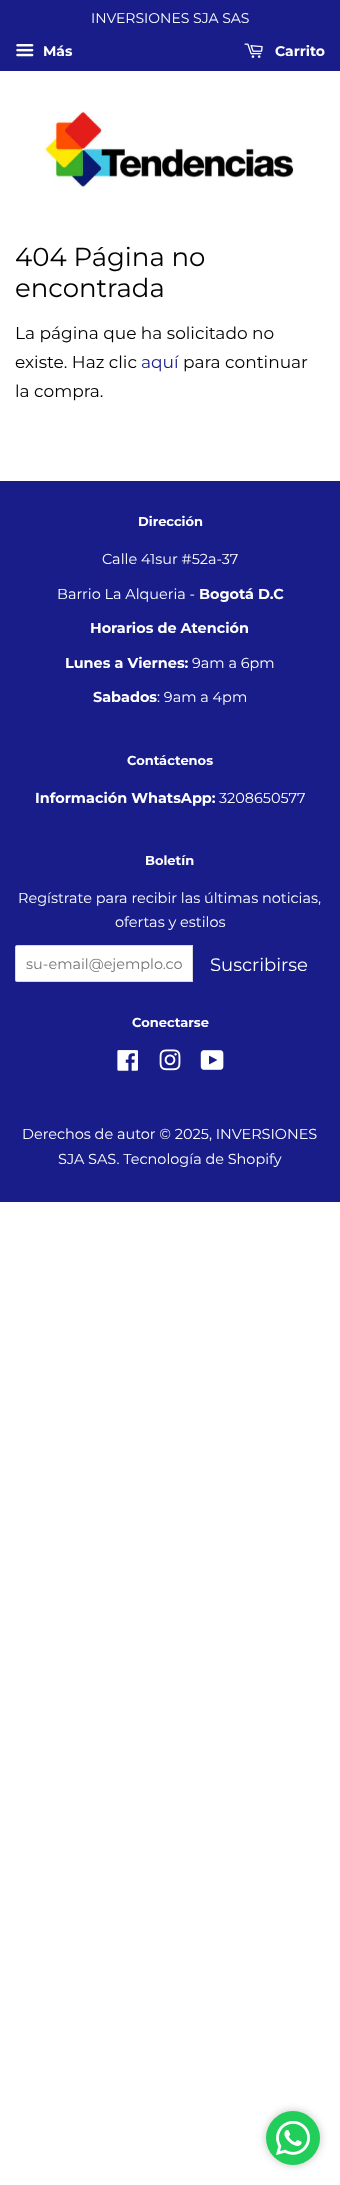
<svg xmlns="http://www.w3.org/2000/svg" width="340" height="2185">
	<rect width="100%" height="100%" fill="#FFFFFF" />
	<rect x="0" y="0" width="340" height="71" fill="#181D89" />
	<text x="91" y="23" font-family="Montserrat" font-size="14" fill="#FFFFFF">INVERSIONES SJA SAS</text>
	<image x="16" y="44" width="18" height="13" href="assets/img1.png" />
	<text x="43" y="56" font-family="Montserrat" font-size="14" font-weight="700" fill="#FFFFFF">Más</text>
	<image x="244" y="43" width="19" height="15" href="assets/img2.png" />
	<text x="275" y="56" font-family="Montserrat" font-size="14" font-weight="700" fill="#FFFFFF">Carrito</text>
	<image x="45" y="111" width="249" height="76" href="assets/img3.png" />
	<g font-family="Montserrat" font-size="26" fill="#000000">
		<text x="15" y="266">404 Página no</text>
		<text x="15" y="297">encontrada</text>
	</g>
	<g font-family="Montserrat" font-size="17" fill="#000000">
		<text x="15" y="339">La página que ha solicitado no</text>
		<text x="15" y="368">existe. Haz clic</text>
	</g>
	<text x="141" y="368" font-family="Montserrat" font-size="17" fill="#181D89">aquí</text>
	<g font-family="Montserrat" font-size="17" fill="#000000">
		<text x="183" y="368">para continuar</text>
		<text x="15" y="397">la compra.</text>
	</g>
	<rect x="0" y="481" width="340" height="721" fill="#181D89" />
	<text x="138" y="526" font-family="Montserrat" font-size="13" font-weight="700" fill="#FFFFFF">Dirección</text>
	<g font-family="Montserrat" font-size="14.45" fill="#FFFFFF">
		<text x="102" y="564">Calle 41sur #52a-37</text>
		<text x="57" y="599">Barrio La Alqueria -</text>
	</g>
	<g font-family="Montserrat" font-size="14.45" font-weight="700" fill="#FFFFFF">
		<text x="199" y="599">Bogotá D.C</text>
		<text x="90" y="633">Horarios de Atención</text>
		<text x="65" y="668">Lunes a Viernes:</text>
	</g>
	<text x="192" y="668" font-family="Montserrat" font-size="14.45" fill="#FFFFFF">9am a 6pm</text>
	<text x="93" y="702" font-family="Montserrat" font-size="14.45" font-weight="700" fill="#FFFFFF">Sabados</text>
	<text x="157" y="702" font-family="Montserrat" font-size="14.45" fill="#FFFFFF">: 9am a 4pm</text>
	<text x="127" y="765" font-family="Montserrat" font-size="13" font-weight="700" fill="#FFFFFF">Contáctenos</text>
	<text x="35" y="803" font-family="Montserrat" font-size="14.45" font-weight="700" fill="#FFFFFF">Información WhatsApp:</text>
	<text x="219" y="803" font-family="Montserrat" font-size="14.45" fill="#FFFFFF">3208650577</text>
	<text x="145" y="865" font-family="Montserrat" font-size="13" font-weight="700" fill="#FFFFFF">Boletín</text>
	<g font-family="Montserrat" font-size="14.45" fill="#FFFFFF">
		<text x="18" y="903">Regístrate para recibir las últimas noticias,</text>
		<text x="115" y="927">ofertas y estilos</text>
	</g>
	<path d="M17 945H193V982H17C16 982 15 981 15 980V947C15 946 16 945 17 945Z" fill="#FFFFFF" />
	<path d="M17 945.5H192.5V981.5H17C16 981.5 15.5 981 15.5 980V947C15.5 946 16 945.5 17 945.5Z" fill="none" stroke="#000000" stroke-opacity="0.15" />
	<text x="26" y="969" font-family="Montserrat" font-size="14.45" fill="#757575">su-email@ejemplo.co</text>
	<text x="210" y="971" font-family="Montserrat" font-size="18" fill="#FFFFFF">Suscribirse</text>
	<text x="132" y="1027" font-family="Montserrat" font-size="13" font-weight="700" fill="#FFFFFF">Conectarse</text>
	<image x="117" y="1050" width="21" height="21" href="assets/img4.png" />
	<image x="159" y="1049" width="22" height="22" href="assets/img5.png" />
	<image x="200" y="1050" width="24" height="20" href="assets/img6.png" />
	<g font-family="Montserrat" font-size="14.45" fill="#FFFFFF">
		<text x="22" y="1139">Derechos de autor © 2025, INVERSIONES</text>
		<text x="58" y="1164">SJA SAS. Tecnología de Shopify</text>
	</g>
	<rect x="266" y="2111" width="54" height="54" rx="27" fill="#C2C2C2" filter="blur(4px)" />
	<circle cx="293" cy="2138" r="27" fill="#22CE5A" />
	<image x="276" y="2121" width="34" height="34" href="assets/img7.png" />
</svg>
